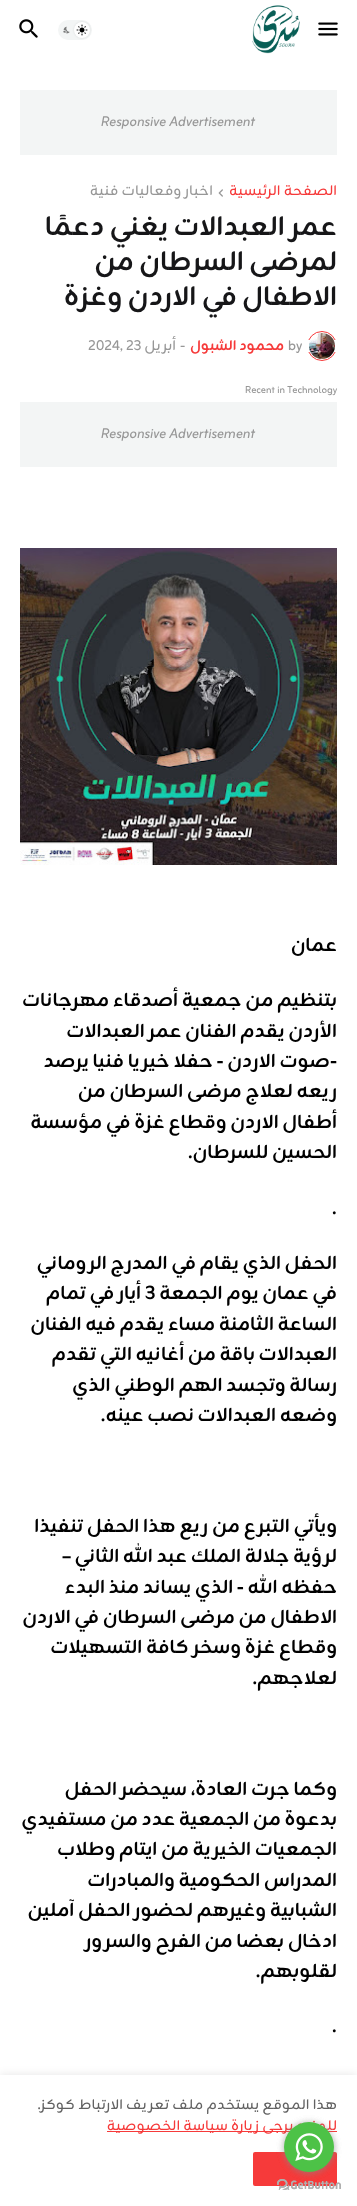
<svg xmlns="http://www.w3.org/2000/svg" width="357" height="2206">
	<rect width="100%" height="100%" fill="#FFFFFF" />
	<image x="318" y="22" width="20" height="14" href="assets/img1.png" />
	<image x="252" y="5" width="48" height="49" href="assets/img2.png" />
	<rect x="58" y="20" width="34" height="20" rx="10" fill="#F3F5F5" />
	<rect x="74" y="22" width="16" height="16" rx="8" fill="#000000" fill-opacity="0.1" filter="blur(1px)" />
	<circle cx="82" cy="30" r="8" fill="#FFFFFF" />
	<image x="76" y="24" width="12" height="12" href="assets/img3.png" />
	<image x="63" y="26" width="7" height="8" href="assets/img4.png" />
	<image x="19" y="19" width="19" height="19" href="assets/img5.png" />
	<rect x="20" y="90" width="317" height="65" fill="#F3F5F5" />
	<text x="101" y="126" font-family="Zain" font-size="14" font-style="italic" fill="#979797">Responsive Advertisement</text>
	<text x="337" y="195" font-family="Zain" font-size="14" direction="rtl" fill="#F63A3A">الصفحة الرئيسية</text>
	<image x="218" y="189" width="5" height="8" href="assets/img6.png" />
	<text x="213" y="195" font-family="Zain" font-size="14" direction="rtl" fill="#979797">اخبار وفعاليات فنية</text>
	<g font-family="Zain" font-size="27" font-weight="700" direction="rtl" fill="#161618">
		<text x="337" y="235">عمر العبدالات يغني دعمًا</text>
		<text x="337" y="270">لمرضى السرطان من</text>
		<text x="337" y="305">الاطفال في الاردن وغزة</text>
	</g>
	<circle cx="322" cy="346" r="14.5" fill="none" stroke="#F63A3A" />
	<rect x="307" y="340" width="30" height="12" fill="#FFFFFF" />
	<image x="309" y="333" width="26" height="26" href="assets/img7.png" />
	<text x="288" y="350" font-family="Zain" font-size="14" fill="#979797">by</text>
	<text x="284" y="350" font-family="Zain" font-size="14" font-weight="700" direction="rtl" fill="#F63A3A">محمود الشبول</text>
	<text x="180" y="350" font-family="Zain" font-size="14" fill="#979797">-</text>
	<text x="176" y="350" font-family="Zain" font-size="14" direction="rtl" fill="#979797">أبريل</text>
	<text x="88" y="350" font-family="Zain" font-size="14" fill="#979797">2024, 23</text>
	<text x="245" y="393" font-family="Zain" font-size="10" fill="#979797">Recent in Technology</text>
	<rect x="20" y="402" width="317" height="65" fill="#F3F5F5" />
	<text x="101" y="438" font-family="Zain" font-size="14" font-style="italic" fill="#979797">Responsive Advertisement</text>
	<image x="20" y="548" width="317" height="317" href="assets/img8.png" />
	<g font-family="Zain" font-size="19" font-weight="700" direction="rtl" fill="#000000">
		<text x="337" y="951">عمان</text>
		<text x="337" y="1006">بتنظيم من جمعية أصدقاء مهرجانات</text>
		<text x="337" y="1037">الأردن يقدم الفنان عمر العبدالات</text>
		<text x="337" y="1067">-صوت الاردن - حفلا خيريا فنيا يرصد</text>
		<text x="337" y="1097">ريعه لعلاج مرضى السرطان من</text>
		<text x="337" y="1128">أطفال الاردن وقطاع غزة في مؤسسة</text>
		<text x="337" y="1158">الحسين للسرطان.</text>
	</g>
	<text x="332" y="1214" font-family="Zain" font-size="19" font-weight="700" fill="#000000">.</text>
	<g font-family="Zain" font-size="19" font-weight="700" direction="rtl" fill="#000000">
		<text x="337" y="1269">الحفل الذي يقام في المدرج الروماني</text>
		<text x="337" y="1299">في عمان يوم الجمعة</text>
	</g>
	<text x="145" y="1299" font-family="Zain" font-size="19" font-weight="700" fill="#000000">٣</text>
	<g font-family="Zain" font-size="19" font-weight="700" direction="rtl" fill="#000000">
		<text x="141" y="1299">أيار في تمام</text>
		<text x="337" y="1330">الساعة الثامنة مساء يقدم فيه الفنان</text>
		<text x="337" y="1360">العبدالات باقة من أغانيه التي تقدم</text>
		<text x="337" y="1391">رسالة وتجسد الهم الوطني الذي</text>
		<text x="337" y="1421">وضعه العبدالات نصب عينه.</text>
		<text x="337" y="1532">ويأتي التبرع من ريع هذا الحفل تنفيذا</text>
		<text x="337" y="1562">لرؤية جلالة الملك عبد الله الثاني –</text>
		<text x="337" y="1593">حفظه الله - الذي يساند منذ البدء</text>
		<text x="337" y="1623">الاطفال من مرضى السرطان في الاردن</text>
		<text x="337" y="1653">وقطاع غزة وسخر كافة التسهيلات</text>
		<text x="337" y="1684">لعلاجهم.</text>
		<text x="337" y="1795">وكما جرت العادة، سيحضر الحفل</text>
		<text x="337" y="1825">بدعوة من الجمعية عدد من مستفيدي</text>
		<text x="337" y="1855">الجمعيات الخيرية من ايتام وطلاب</text>
		<text x="337" y="1886">المدراس الحكومية والمبادرات</text>
		<text x="337" y="1916">الشبابية وغيرهم لحضور الحفل آملين</text>
		<text x="337" y="1947">ادخال بعضا من الفرح والسرور</text>
		<text x="337" y="1977">لقلوبهم.</text>
	</g>
	<text x="332" y="2032" font-family="Zain" font-size="19" font-weight="700" fill="#000000">.</text>
	<rect x="0" y="2075" width="357" height="131" fill="#000000" fill-opacity="0.1" filter="blur(5px)" />
	<rect x="0" y="2075" width="357" height="131" fill="#FFFFFF" />
	<text x="337" y="2109" font-family="Zain" font-size="14" direction="rtl" fill="#626262">هذا الموقع يستخدم ملف تعريف الارتباط كوكز.</text>
	<rect x="107" y="2131" width="230" height="1" fill="#F63A3A" />
	<text x="337" y="2130" font-family="Zain" font-size="14" direction="rtl" fill="#F63A3A">للمزيد يرجى زيارة سياسة الخصوصية</text>
	<rect x="253" y="2152" width="84" height="34" rx="2" fill="#F63A3A" />
	<image x="277" y="2179" width="64" height="11" href="assets/img9.png" />
	<rect x="284" y="2123" width="50" height="50" rx="25" fill="#888888" fill-opacity="0.4" filter="blur(3.5px)" />
	<image x="277" y="2179" width="64" height="11" href="assets/img11.png" />
	<rect x="284" y="2123" width="50" height="50" rx="25" fill="#888888" fill-opacity="0.4" filter="blur(3.5px)" />
	<circle cx="309" cy="2147" r="25" fill="#4DC247" />
	<image x="295" y="2133" width="28" height="28" href="assets/img10.png" />
</svg>
